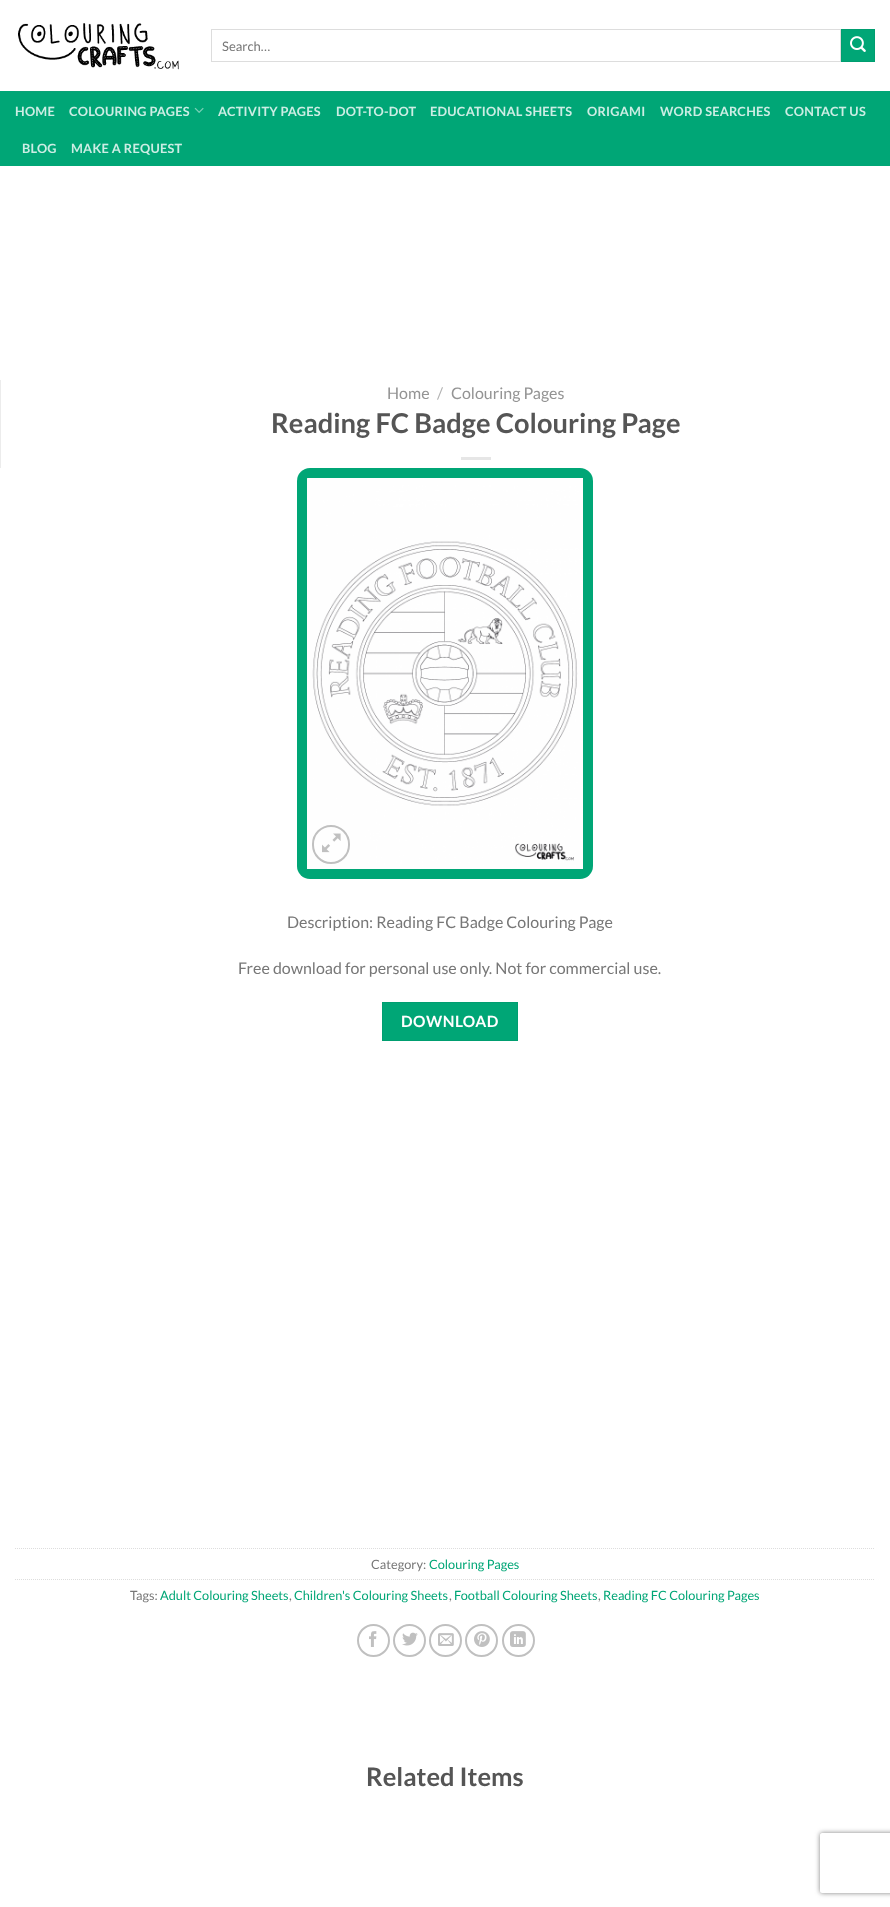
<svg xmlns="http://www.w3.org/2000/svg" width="890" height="1907">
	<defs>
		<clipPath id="clip1"><path d="M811 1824H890V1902H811ZM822 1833H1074C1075 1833 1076 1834 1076 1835V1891C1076 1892 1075 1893 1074 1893H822C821 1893 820 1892 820 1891V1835C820 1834 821 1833 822 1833Z" clip-rule="evenodd" /></clipPath>
	</defs>
	<rect width="100%" height="100%" fill="#FFFFFF" />
	<image x="18" y="23" width="161" height="47" href="assets/img1.png" />
	<rect x="211.5" y="29.5" width="629" height="32" fill="none" stroke="#DDDDDD" />
	<text x="222" y="51" font-family="Lato" font-size="13" fill="#777777">Search…</text>
	<rect x="841.5" y="29.5" width="33" height="32" fill="#00A676" stroke="#009E70" />
	<image x="850" y="36" width="16" height="16" href="assets/img2.png" />
	<rect x="0" y="91" width="890" height="75" fill="#00A676" />
	<rect x="15" y="91" width="860" height="1" fill="#0CA176" />
	<g font-family="Lato" font-size="12.75" font-weight="700" letter-spacing="0.25" fill="#CCEDE4">
		<text x="15" y="116">HOME</text>
		<text x="69" y="116">COLOURING PAGES</text>
	</g>
	<image x="194" y="107" width="10" height="6" href="assets/img3.png" />
	<g font-family="Lato" font-size="12.75" font-weight="700" letter-spacing="0.25" fill="#CCEDE4">
		<text x="218" y="116">ACTIVITY PAGES</text>
		<text x="336" y="116">DOT-TO-DOT</text>
		<text x="430" y="116">EDUCATIONAL SHEETS</text>
		<text x="587" y="116">ORIGAMI</text>
		<text x="660" y="116">WORD SEARCHES</text>
		<text x="785" y="116">CONTACT US</text>
		<text x="22" y="153">BLOG</text>
		<text x="71" y="153">MAKE A REQUEST</text>
	</g>
	<rect x="0" y="380" width="1" height="88" fill="#ECECEC" />
	<text x="387" y="399" font-family="Lato" font-size="16" fill="#949494">Home</text>
	<text x="437" y="399" font-family="Lato" font-size="16" fill="#B2B2B2">/</text>
	<text x="451" y="399" font-family="Lato" font-size="16" fill="#949494">Colouring Pages</text>
	<text x="271" y="433" font-family="Lato" font-size="27.25" font-weight="700" fill="#555555">Reading FC Badge Colouring Page</text>
	<rect x="461" y="457" width="30" height="3" fill="#E6E6E6" />
	<rect x="297" y="468" width="296" height="411" rx="13" fill="#00A676" />
	<image x="307" y="478" width="276" height="391" href="assets/img4.png" />
	<rect x="313" y="826" width="36" height="37" rx="18" fill="none" stroke="#C0C0C0" stroke-width="2" />
	<image x="322" y="833" width="19" height="20" href="assets/img5.png" />
	<g font-family="Lato" font-size="16" fill="#777777">
		<text x="287" y="928">Description: Reading FC Badge Colouring Page</text>
		<text x="238" y="974">Free download for personal use only. Not for commercial use.</text>
	</g>
	<rect x="382.5" y="1002.5" width="135" height="38" fill="#00A676" stroke="#009E70" />
	<text x="401" y="1027" font-family="Lato" font-size="15.5" font-weight="700" letter-spacing="0.5" fill="#FFFFFF">DOWNLOAD</text>
	<path d="M15 1548.5H875" fill="none" stroke="#DDDDDD" stroke-dasharray="1 1" />
	<text x="371" y="1569" font-family="Lato" font-size="12.75" fill="#777777">Category:</text>
	<text x="429" y="1569" font-family="Lato" font-size="12.75" fill="#00A676">Colouring Pages</text>
	<path d="M15 1579.5H875" fill="none" stroke="#DDDDDD" stroke-dasharray="1 1" />
	<text x="130" y="1600" font-family="Lato" font-size="12.75" fill="#777777">Tags:</text>
	<text x="160" y="1600" font-family="Lato" font-size="12.75" fill="#00A676">Adult Colouring Sheets</text>
	<text x="289" y="1600" font-family="Lato" font-size="12.75" fill="#777777">,</text>
	<text x="294" y="1600" font-family="Lato" font-size="12.75" fill="#00A676">Children's Colouring Sheets</text>
	<text x="449" y="1600" font-family="Lato" font-size="12.75" fill="#777777">,</text>
	<text x="454" y="1600" font-family="Lato" font-size="12.75" fill="#00A676">Football Colouring Sheets</text>
	<text x="598" y="1600" font-family="Lato" font-size="12.75" fill="#777777">,</text>
	<text x="603" y="1600" font-family="Lato" font-size="12.75" fill="#00A676">Reading FC Colouring Pages</text>
	<circle cx="373.5" cy="1640.5" r="15.5" fill="none" stroke="#C0C0C0" stroke-width="2" />
	<image x="369" y="1631" width="8" height="16" href="assets/img6.png" />
	<circle cx="409.5" cy="1640.5" r="15.5" fill="none" stroke="#C0C0C0" stroke-width="2" />
	<image x="402" y="1632" width="16" height="14" href="assets/img7.png" />
	<circle cx="445.5" cy="1640.5" r="15.5" fill="none" stroke="#C0C0C0" stroke-width="2" />
	<image x="438" y="1633" width="16" height="13" href="assets/img8.png" />
	<circle cx="481.5" cy="1640.5" r="15.5" fill="none" stroke="#C0C0C0" stroke-width="2" />
	<image x="474" y="1631" width="16" height="16" href="assets/img9.png" />
	<circle cx="518.5" cy="1640.5" r="15.5" fill="none" stroke="#C0C0C0" stroke-width="2" />
	<image x="510" y="1631" width="16" height="16" href="assets/img10.png" />
	<text x="366" y="1786" font-family="Lato" font-size="25.5" font-weight="700" fill="#555555">Related Items</text>
	<g clip-path="url(#clip1)">
		<rect x="820" y="1833" width="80" height="60" rx="2" fill="#808080" filter="blur(2.5px)" />
	</g>
</svg>
